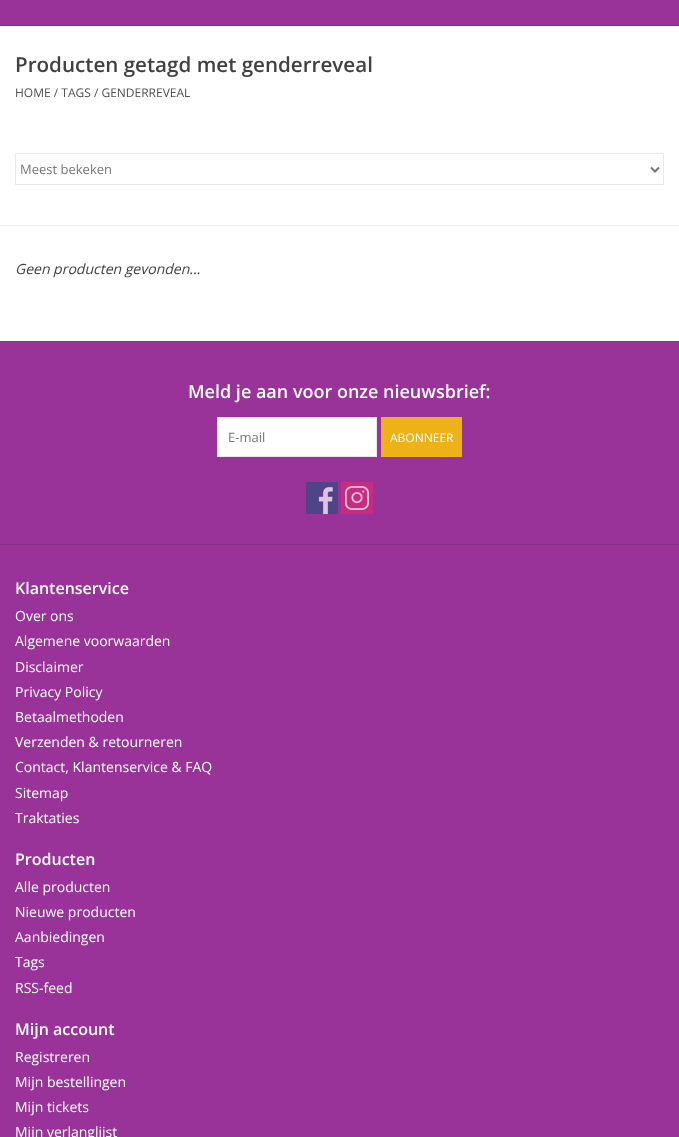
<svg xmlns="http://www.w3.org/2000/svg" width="679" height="1137">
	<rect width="100%" height="100%" fill="#993399" />
	<rect x="0" y="25" width="679" height="1" fill="#8C2E8C" />
	<rect x="0" y="26" width="679" height="315" fill="#FFFFFF" />
	<text x="15" y="72" font-family="Open Sans" font-size="20.6" font-weight="600" fill="#414141">Producten getagd met genderreveal</text>
	<text x="15" y="97" font-family="Open Sans" font-size="12" fill="#505050">HOME / TAGS / GENDERREVEAL</text>
	<rect x="0" y="225" width="679" height="1" fill="#F0F0F0" />
	<rect x="15.5" y="153.5" width="648" height="31" fill="none" stroke="#EAEAEA" />
	<path d="M651 167.5L655 171.5L659 167.5" fill="none" stroke="#777777" stroke-width="2" />
	<text x="20" y="174" font-family="Open Sans" font-size="13" fill="#777777">Meest bekeken</text>
	<text x="15" y="274" font-family="Open Sans" font-size="14" font-style="italic" fill="#414141">Geen producten gevonden...</text>
	<rect x="0" y="341" width="679" height="1" fill="#8C2F8C" />
	<text x="188" y="398" font-family="Open Sans" font-size="18" font-weight="600" fill="#FFFFFF">Meld je aan voor onze nieuwsbrief:</text>
	<rect x="217.5" y="417.5" width="159" height="39" fill="#FFFFFF" stroke="#E9E9E9" />
	<text x="228" y="442" font-family="Open Sans" font-size="13" fill="#777777">E-mail</text>
	<rect x="381" y="417" width="81" height="40" fill="#EFB118" />
	<text x="390" y="442" font-family="Open Sans" font-size="12" fill="#FFFFFF">ABONNEER</text>
	<image x="306" y="482" width="32" height="32" href="assets/img1.png" />
	<image x="341" y="482" width="32" height="32" href="assets/img2.png" />
	<rect x="0" y="544" width="679" height="1" fill="#8C2F8C" />
	<text x="15" y="594" font-family="Open Sans" font-size="16" font-weight="600" fill="#FFFFFF">Klantenservice</text>
	<g font-family="Open Sans" font-size="14" fill="#FFFFFF">
		<text x="15" y="621">Over ons</text>
		<text x="15" y="646">Algemene voorwaarden</text>
		<text x="15" y="672">Disclaimer</text>
		<text x="15" y="697">Privacy Policy</text>
		<text x="15" y="722">Betaalmethoden</text>
		<text x="15" y="747">Verzenden &amp; retourneren</text>
		<text x="15" y="772">Contact, Klantenservice &amp; FAQ</text>
		<text x="15" y="798">Sitemap</text>
		<text x="15" y="823">Traktaties</text>
	</g>
	<text x="15" y="865" font-family="Open Sans" font-size="16" font-weight="600" fill="#FFFFFF">Producten</text>
	<g font-family="Open Sans" font-size="14" fill="#FFFFFF">
		<text x="15" y="892">Alle producten</text>
		<text x="15" y="917">Nieuwe producten</text>
		<text x="15" y="942">Aanbiedingen</text>
		<text x="15" y="967">Tags</text>
		<text x="15" y="993">RSS-feed</text>
	</g>
	<text x="15" y="1035" font-family="Open Sans" font-size="16" font-weight="600" fill="#FFFFFF">Mijn account</text>
	<g font-family="Open Sans" font-size="14" fill="#FFFFFF">
		<text x="15" y="1062">Registreren</text>
		<text x="15" y="1087">Mijn bestellingen</text>
		<text x="15" y="1112">Mijn tickets</text>
		<text x="15" y="1137">Mijn verlanglijst</text>
	</g>
</svg>
